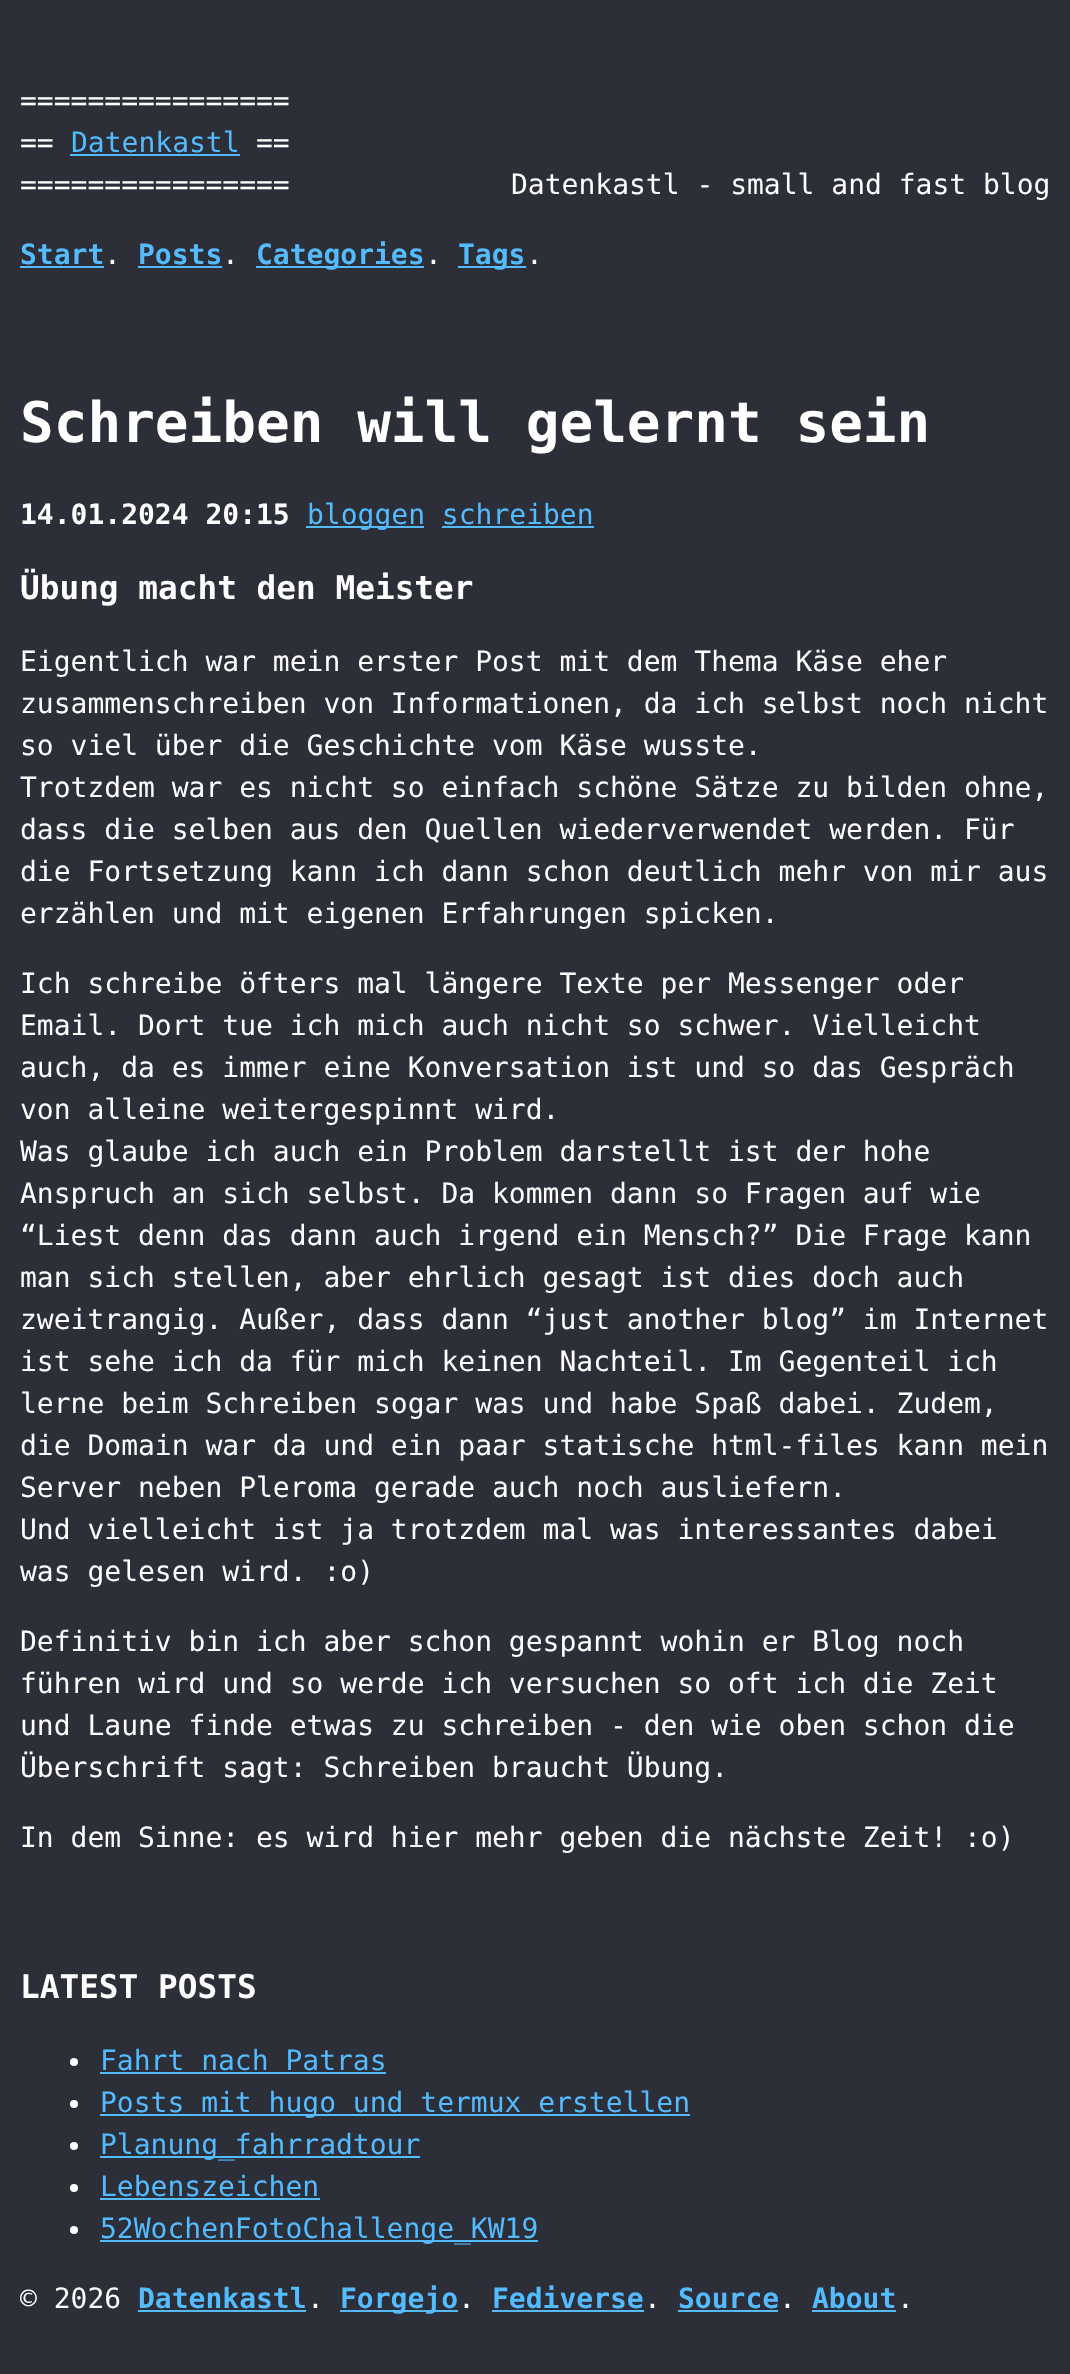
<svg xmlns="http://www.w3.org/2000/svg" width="1070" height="2374">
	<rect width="100%" height="100%" fill="#2C2E38" />
	<g font-family="DejaVu Sans Mono" font-size="28" fill="#FFFFFF">
		<text x="20" y="110">================</text>
		<text x="20" y="152">==</text>
	</g>
	<text x="71" y="152" font-family="DejaVu Sans Mono" font-size="28" fill="#55BBFF">Datenkastl</text>
	<rect x="70" y="154" width="170" height="2" fill="#55BBFF" />
	<g font-family="DejaVu Sans Mono" font-size="28" fill="#FFFFFF">
		<text x="256" y="152">==</text>
		<text x="20" y="194">================</text>
		<text x="511" y="194">Datenkastl - small and fast blog</text>
	</g>
	<text x="20" y="264" font-family="DejaVu Sans Mono" font-size="28" font-weight="700" fill="#55BBFF">Start</text>
	<rect x="20" y="266" width="84" height="2" fill="#55BBFF" />
	<text x="104" y="264" font-family="DejaVu Sans Mono" font-size="28" fill="#FFFFFF">.</text>
	<text x="138" y="264" font-family="DejaVu Sans Mono" font-size="28" font-weight="700" fill="#55BBFF">Posts</text>
	<rect x="138" y="266" width="84" height="2" fill="#55BBFF" />
	<text x="222" y="264" font-family="DejaVu Sans Mono" font-size="28" fill="#FFFFFF">.</text>
	<rect x="256" y="266" width="168" height="2" fill="#55BBFF" />
	<text x="256" y="264" font-family="DejaVu Sans Mono" font-size="28" font-weight="700" fill="#55BBFF">Categories</text>
	<text x="425" y="264" font-family="DejaVu Sans Mono" font-size="28" fill="#FFFFFF">.</text>
	<rect x="458" y="266" width="68" height="2" fill="#55BBFF" />
	<text x="458" y="264" font-family="DejaVu Sans Mono" font-size="28" font-weight="700" fill="#55BBFF">Tags</text>
	<text x="526" y="264" font-family="DejaVu Sans Mono" font-size="28" fill="#FFFFFF">.</text>
	<text x="20" y="442" font-family="DejaVu Sans Mono" font-size="56" font-weight="700" fill="#FFFFFF">Schreiben will gelernt sein</text>
	<text x="20" y="524" font-family="DejaVu Sans Mono" font-size="28" font-weight="700" fill="#FFFFFF">14.01.2024 20:15</text>
	<rect x="306" y="526" width="118" height="2" fill="#55BBFF" />
	<text x="307" y="524" font-family="DejaVu Sans Mono" font-size="28" fill="#55BBFF">bloggen schreiben</text>
	<rect x="442" y="526" width="152" height="2" fill="#55BBFF" />
	<text x="20" y="599" font-family="DejaVu Sans Mono" font-size="32.75" font-weight="700" fill="#FFFFFF">Übung macht den Meister</text>
	<g font-family="DejaVu Sans Mono" font-size="28" fill="#FFFFFF">
		<text x="20" y="671">Eigentlich war mein erster Post mit dem Thema Käse eher</text>
		<text x="20" y="713">zusammenschreiben von Informationen, da ich selbst noch nicht</text>
		<text x="20" y="755">so viel über die Geschichte vom Käse wusste.</text>
		<text x="20" y="797">Trotzdem war es nicht so einfach schöne Sätze zu bilden ohne,</text>
		<text x="20" y="839">dass die selben aus den Quellen wiederverwendet werden. Für</text>
		<text x="20" y="881">die Fortsetzung kann ich dann schon deutlich mehr von mir aus</text>
		<text x="20" y="923">erzählen und mit eigenen Erfahrungen spicken.</text>
		<text x="20" y="993">Ich schreibe öfters mal längere Texte per Messenger oder</text>
		<text x="20" y="1035">Email. Dort tue ich mich auch nicht so schwer. Vielleicht</text>
		<text x="20" y="1077">auch, da es immer eine Konversation ist und so das Gespräch</text>
		<text x="20" y="1119">von alleine weitergespinnt wird.</text>
		<text x="20" y="1161">Was glaube ich auch ein Problem darstellt ist der hohe</text>
		<text x="20" y="1203">Anspruch an sich selbst. Da kommen dann so Fragen auf wie</text>
		<text x="20" y="1245">“Liest denn das dann auch irgend ein Mensch?” Die Frage kann</text>
		<text x="20" y="1287">man sich stellen, aber ehrlich gesagt ist dies doch auch</text>
		<text x="20" y="1329">zweitrangig. Außer, dass dann “just another blog” im Internet</text>
		<text x="20" y="1371">ist sehe ich da für mich keinen Nachteil. Im Gegenteil ich</text>
		<text x="20" y="1413">lerne beim Schreiben sogar was und habe Spaß dabei. Zudem,</text>
		<text x="20" y="1455">die Domain war da und ein paar statische html-files kann mein</text>
		<text x="20" y="1497">Server neben Pleroma gerade auch noch ausliefern.</text>
		<text x="20" y="1539">Und vielleicht ist ja trotzdem mal was interessantes dabei</text>
		<text x="20" y="1581">was gelesen wird. :o)</text>
		<text x="20" y="1651">Definitiv bin ich aber schon gespannt wohin er Blog noch</text>
		<text x="20" y="1693">führen wird und so werde ich versuchen so oft ich die Zeit</text>
		<text x="20" y="1735">und Laune finde etwas zu schreiben - den wie oben schon die</text>
		<text x="20" y="1777">Überschrift sagt: Schreiben braucht Übung.</text>
		<text x="20" y="1847">In dem Sinne: es wird hier mehr geben die nächste Zeit! :o)</text>
	</g>
	<text x="20" y="1998" font-family="DejaVu Sans Mono" font-size="32.75" font-weight="700" fill="#FFFFFF">LATEST POSTS</text>
	<circle cx="74" cy="2062" r="4" fill="#FFFFFF" />
	<text x="100" y="2070" font-family="DejaVu Sans Mono" font-size="28" fill="#55BBFF">Fahrt nach Patras</text>
	<rect x="100" y="2072" width="286" height="2" fill="#55BBFF" />
	<circle cx="74" cy="2104" r="4" fill="#FFFFFF" />
	<rect x="100" y="2114" width="590" height="2" fill="#55BBFF" />
	<text x="100" y="2112" font-family="DejaVu Sans Mono" font-size="28" fill="#55BBFF">Posts mit hugo und termux erstellen</text>
	<circle cx="74" cy="2146" r="4" fill="#FFFFFF" />
	<rect x="100" y="2156" width="320" height="2" fill="#55BBFF" />
	<text x="100" y="2154" font-family="DejaVu Sans Mono" font-size="28" fill="#55BBFF">Planung_fahrradtour</text>
	<circle cx="74" cy="2188" r="4" fill="#FFFFFF" />
	<text x="100" y="2196" font-family="DejaVu Sans Mono" font-size="28" fill="#55BBFF">Lebenszeichen</text>
	<rect x="100" y="2198" width="220" height="2" fill="#55BBFF" />
	<circle cx="74" cy="2230" r="4" fill="#FFFFFF" />
	<rect x="100" y="2240" width="438" height="2" fill="#55BBFF" />
	<text x="100" y="2238" font-family="DejaVu Sans Mono" font-size="28" fill="#55BBFF">52WochenFotoChallenge_KW19</text>
	<text x="20" y="2308" font-family="DejaVu Sans Mono" font-size="28" fill="#FFFFFF">© 2026</text>
	<text x="138" y="2308" font-family="DejaVu Sans Mono" font-size="28" font-weight="700" fill="#55BBFF">Datenkastl</text>
	<rect x="138" y="2310" width="168" height="2" fill="#55BBFF" />
	<text x="307" y="2308" font-family="DejaVu Sans Mono" font-size="28" fill="#FFFFFF">.</text>
	<rect x="340" y="2310" width="118" height="2" fill="#55BBFF" />
	<text x="340" y="2308" font-family="DejaVu Sans Mono" font-size="28" font-weight="700" fill="#55BBFF">Forgejo</text>
	<text x="458" y="2308" font-family="DejaVu Sans Mono" font-size="28" fill="#FFFFFF">.</text>
	<text x="492" y="2308" font-family="DejaVu Sans Mono" font-size="28" font-weight="700" fill="#55BBFF">Fediverse</text>
	<rect x="492" y="2310" width="152" height="2" fill="#55BBFF" />
	<text x="644" y="2308" font-family="DejaVu Sans Mono" font-size="28" fill="#FFFFFF">.</text>
	<text x="678" y="2308" font-family="DejaVu Sans Mono" font-size="28" font-weight="700" fill="#55BBFF">Source</text>
	<rect x="678" y="2310" width="100" height="2" fill="#55BBFF" />
	<text x="779" y="2308" font-family="DejaVu Sans Mono" font-size="28" fill="#FFFFFF">.</text>
	<text x="812" y="2308" font-family="DejaVu Sans Mono" font-size="28" font-weight="700" fill="#55BBFF">About</text>
	<rect x="812" y="2310" width="84" height="2" fill="#55BBFF" />
	<text x="897" y="2308" font-family="DejaVu Sans Mono" font-size="28" fill="#FFFFFF">.</text>
</svg>
